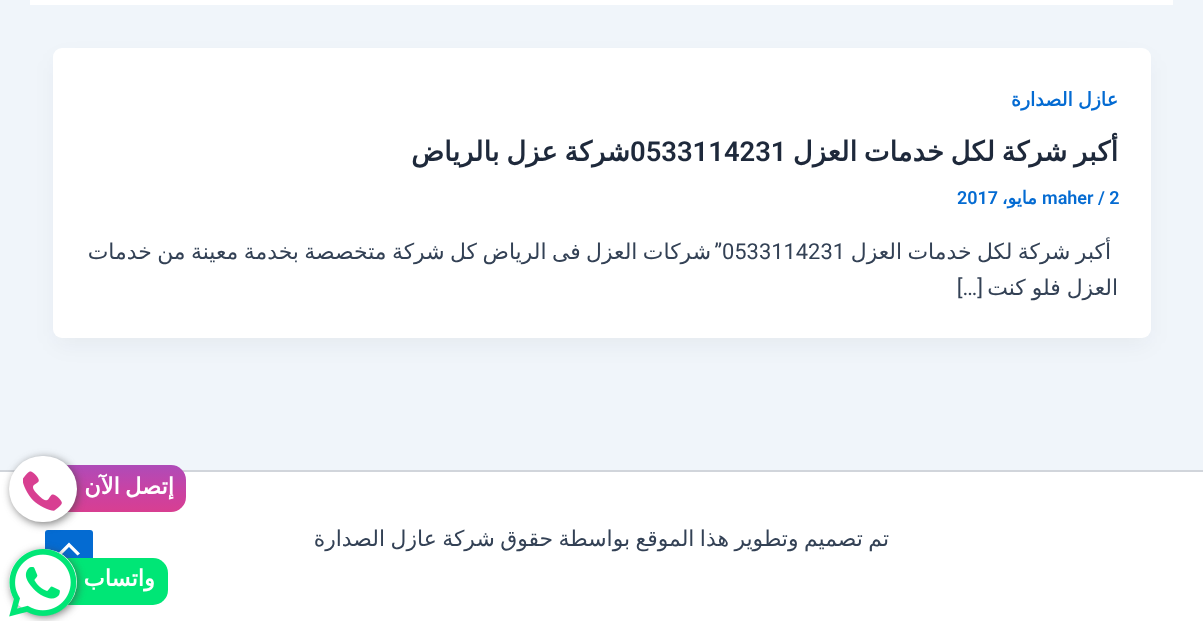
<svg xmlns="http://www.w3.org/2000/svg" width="1203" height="621">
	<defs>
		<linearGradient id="g1" gradientUnits="userSpaceOnUse" x1="120" y1="512" x2="120" y2="465"><stop offset="0" stop-color="#D83F91" /><stop offset="0.25" stop-color="#D0409B" /><stop offset="0.5" stop-color="#C743A5" /><stop offset="0.75" stop-color="#BB47AF" /><stop offset="1" stop-color="#AE4BB8" /></linearGradient>
	</defs>
	<rect width="100%" height="100%" fill="#F0F5FA" />
	<rect x="30" y="0" width="1143" height="5" fill="#FFFFFF" />
	<rect x="56" y="60" width="1092" height="284" rx="6" fill="#101828" fill-opacity="0.05" filter="blur(11px)" />
	<rect x="53" y="48" width="1098" height="290" rx="9" fill="#FFFFFF" />
	<text x="1118" y="106" word-spacing="-1" font-family="DejaVu Sans" font-size="19" font-weight="700" direction="rtl" fill="#046BD2">عازل الصدارة</text>
	<g font-family="DejaVu Sans" font-size="27.4" font-weight="700" direction="rtl" fill="#1E293B">
		<text x="1118" y="161" word-spacing="-2">أكبر شركة لكل خدمات العزل</text>
		<text x="630" y="161" word-spacing="-2">شركة عزل بالرياض</text>
	</g>
	<text x="630" y="161" font-family="Roboto" font-size="27.4" font-weight="600" fill="#1E293B">0533114231</text>
	<text x="1042" y="204" font-family="Roboto" font-size="18" font-weight="600" fill="#046BD2">maher / 2</text>
	<text x="1037" y="204" font-family="DejaVu Sans" font-size="18" font-weight="700" direction="rtl" fill="#046BD2">مايو،</text>
	<text x="957" y="204" font-family="Roboto" font-size="18" font-weight="600" fill="#046BD2">2017</text>
	<g font-family="DejaVu Sans" font-size="21.9" direction="rtl" fill="#334155">
		<text x="1111" y="259" word-spacing="-1.5">أكبر شركة لكل خدمات العزل</text>
		<text x="711" y="259" word-spacing="-1.5">شركات العزل فى الرياض كل شركة متخصصة بخدمة معينة من خدمات</text>
	</g>
	<text x="722" y="259" font-family="Roboto" font-size="21.9" fill="#334155">0533114231</text>
	<text x="722" y="259" font-family="Roboto" font-size="21.9" direction="rtl" fill="#334155">”</text>
	<text x="1118" y="295" word-spacing="-1" font-family="DejaVu Sans" font-size="21.9" direction="rtl" fill="#334155">العزل فلو كنت</text>
	<text x="983" y="295" font-family="Roboto" font-size="21.9" direction="rtl" fill="#334155">[…]</text>
	<rect x="0" y="472" width="1203" height="149" fill="#FFFFFF" />
	<rect x="0" y="470" width="1203" height="2" fill="#D1D5DB" />
	<text x="889" y="546" word-spacing="-1.5" font-family="DejaVu Sans" font-size="21.9" direction="rtl" fill="#334155">تم تصميم وتطوير هذا الموقع بواسطة حقوق شركة عازل الصدارة</text>
	<rect x="54" y="465" width="132" height="47" rx="15" fill="url(#g1)" />
	<text x="174" y="494" word-spacing="-2" font-family="DejaVu Sans" font-size="22.5" font-weight="700" direction="rtl" fill="#FFFFFF">إتصل الآن</text>
	<rect x="45" y="530" width="48" height="46" rx="3" fill="#046BD2" />
	<rect x="11" y="458" width="67" height="66" rx="33" fill="#444444" fill-opacity="0.71" filter="blur(4.5px)" />
	<rect x="9" y="456" width="68" height="66" rx="33" fill="#FFFFFF" />
	<image x="23" y="471" width="39" height="40" href="assets/img1.png" />
	<rect x="54" y="558" width="114" height="47" rx="15" fill="#00E676" />
	<text x="155" y="586" font-family="DejaVu Sans" font-size="22.5" font-weight="700" direction="rtl" fill="#FFFFFF">واتساب</text>
	<path d="M80 553.5L69 542.5L58 553.5L60.5 555.5L69 547L77.5 555.5Z" fill="#FFFFFF" />
	<rect x="11" y="551" width="67" height="66" rx="33" fill="#444444" fill-opacity="0.71" filter="blur(4.5px)" />
	<rect x="9" y="549" width="68" height="66" rx="33" fill="#FFFFFF" />
	<image x="9" y="549" width="68" height="68" href="assets/img2.png" />
</svg>
